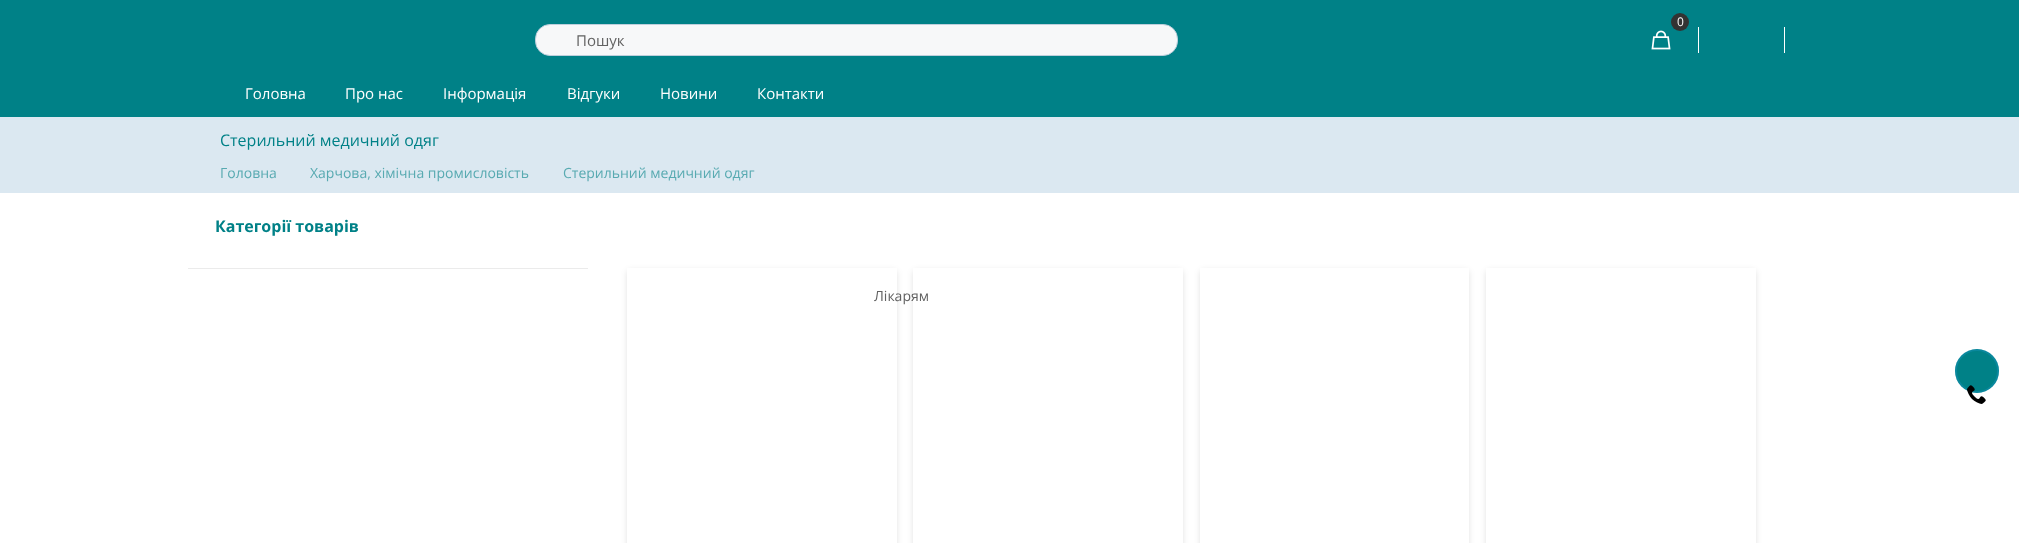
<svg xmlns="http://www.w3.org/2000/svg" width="2019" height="543">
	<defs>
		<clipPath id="clip1"><path d="M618 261H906V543H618ZM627 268H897V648H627Z" clip-rule="evenodd" /></clipPath>
		<clipPath id="clip2"><path d="M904 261H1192V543H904ZM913 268H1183V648H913Z" clip-rule="evenodd" /></clipPath>
		<clipPath id="clip3"><path d="M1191 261H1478V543H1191ZM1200 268H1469V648H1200Z" clip-rule="evenodd" /></clipPath>
		<clipPath id="clip4"><path d="M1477 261H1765V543H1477ZM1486 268H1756V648H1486Z" clip-rule="evenodd" /></clipPath>
	</defs>
	<rect width="100%" height="100%" fill="#FFFFFF" />
	<rect x="0" y="0" width="2019" height="117" fill="#008187" />
	<circle cx="1680" cy="22" r="9" fill="#333333" />
	<text x="1677" y="26" font-family="Open Sans" font-size="12" fill="#FFFFFF">0</text>
	<image x="1651" y="30" width="20" height="20" href="assets/img1.png" />
	<rect x="1698" y="27" width="1" height="26" fill="#FFFFFF" />
	<rect x="1784" y="27" width="1" height="26" fill="#FFFFFF" />
	<rect x="535.5" y="24.5" width="642" height="31" rx="14.5" fill="#F7F8F9" stroke="#BECFDC" />
	<text x="576" y="46" font-family="Open Sans" font-size="15" fill="#626262">Пошук</text>
	<g font-family="Open Sans" font-size="15" fill="#FFFFFF">
		<text x="245" y="99">Головна</text>
		<text x="345" y="99">Про нас</text>
		<text x="443" y="99">Інформація</text>
		<text x="567" y="99">Відгуки</text>
		<text x="660" y="99">Новини</text>
		<text x="757" y="99">Контакти</text>
	</g>
	<rect x="0" y="117" width="2019" height="76" fill="#DBE8F1" />
	<text x="220" y="146" font-family="Open Sans" font-size="16" fill="#008187">Стерильний медичний одяг</text>
	<g font-family="Open Sans" font-size="14" fill="#58AAB1">
		<text x="220" y="178">Головна</text>
		<text x="310" y="178">Харчова, хімічна промисловість</text>
		<text x="563" y="178">Стерильний медичний одяг</text>
	</g>
	<text x="215" y="232" font-family="Open Sans" font-size="16" font-weight="700" fill="#008187">Категорії товарів</text>
	<rect x="188" y="268" width="400" height="1" fill="#EBEBEB" />
	<text x="874" y="301" font-family="Open Sans" font-size="14" fill="#626262">Лікарям</text>
	<g clip-path="url(#clip1)">
		<rect x="628" y="271" width="268" height="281" fill="#000000" fill-opacity="0.16" filter="blur(3px)" />
	</g>
	<g clip-path="url(#clip2)">
		<rect x="914" y="271" width="268" height="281" fill="#000000" fill-opacity="0.16" filter="blur(3px)" />
	</g>
	<g clip-path="url(#clip3)">
		<rect x="1201" y="271" width="267" height="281" fill="#000000" fill-opacity="0.16" filter="blur(3px)" />
	</g>
	<g clip-path="url(#clip4)">
		<rect x="1487" y="271" width="268" height="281" fill="#000000" fill-opacity="0.16" filter="blur(3px)" />
	</g>
	<circle cx="1977" cy="371" r="22" fill="#008187" />
	<circle cx="1977" cy="371" r="21" fill="none" stroke="#2098D1" stroke-opacity="0.3" stroke-width="2" />
	<image x="1967" y="385" width="19" height="19" href="assets/img2.png" />
</svg>
